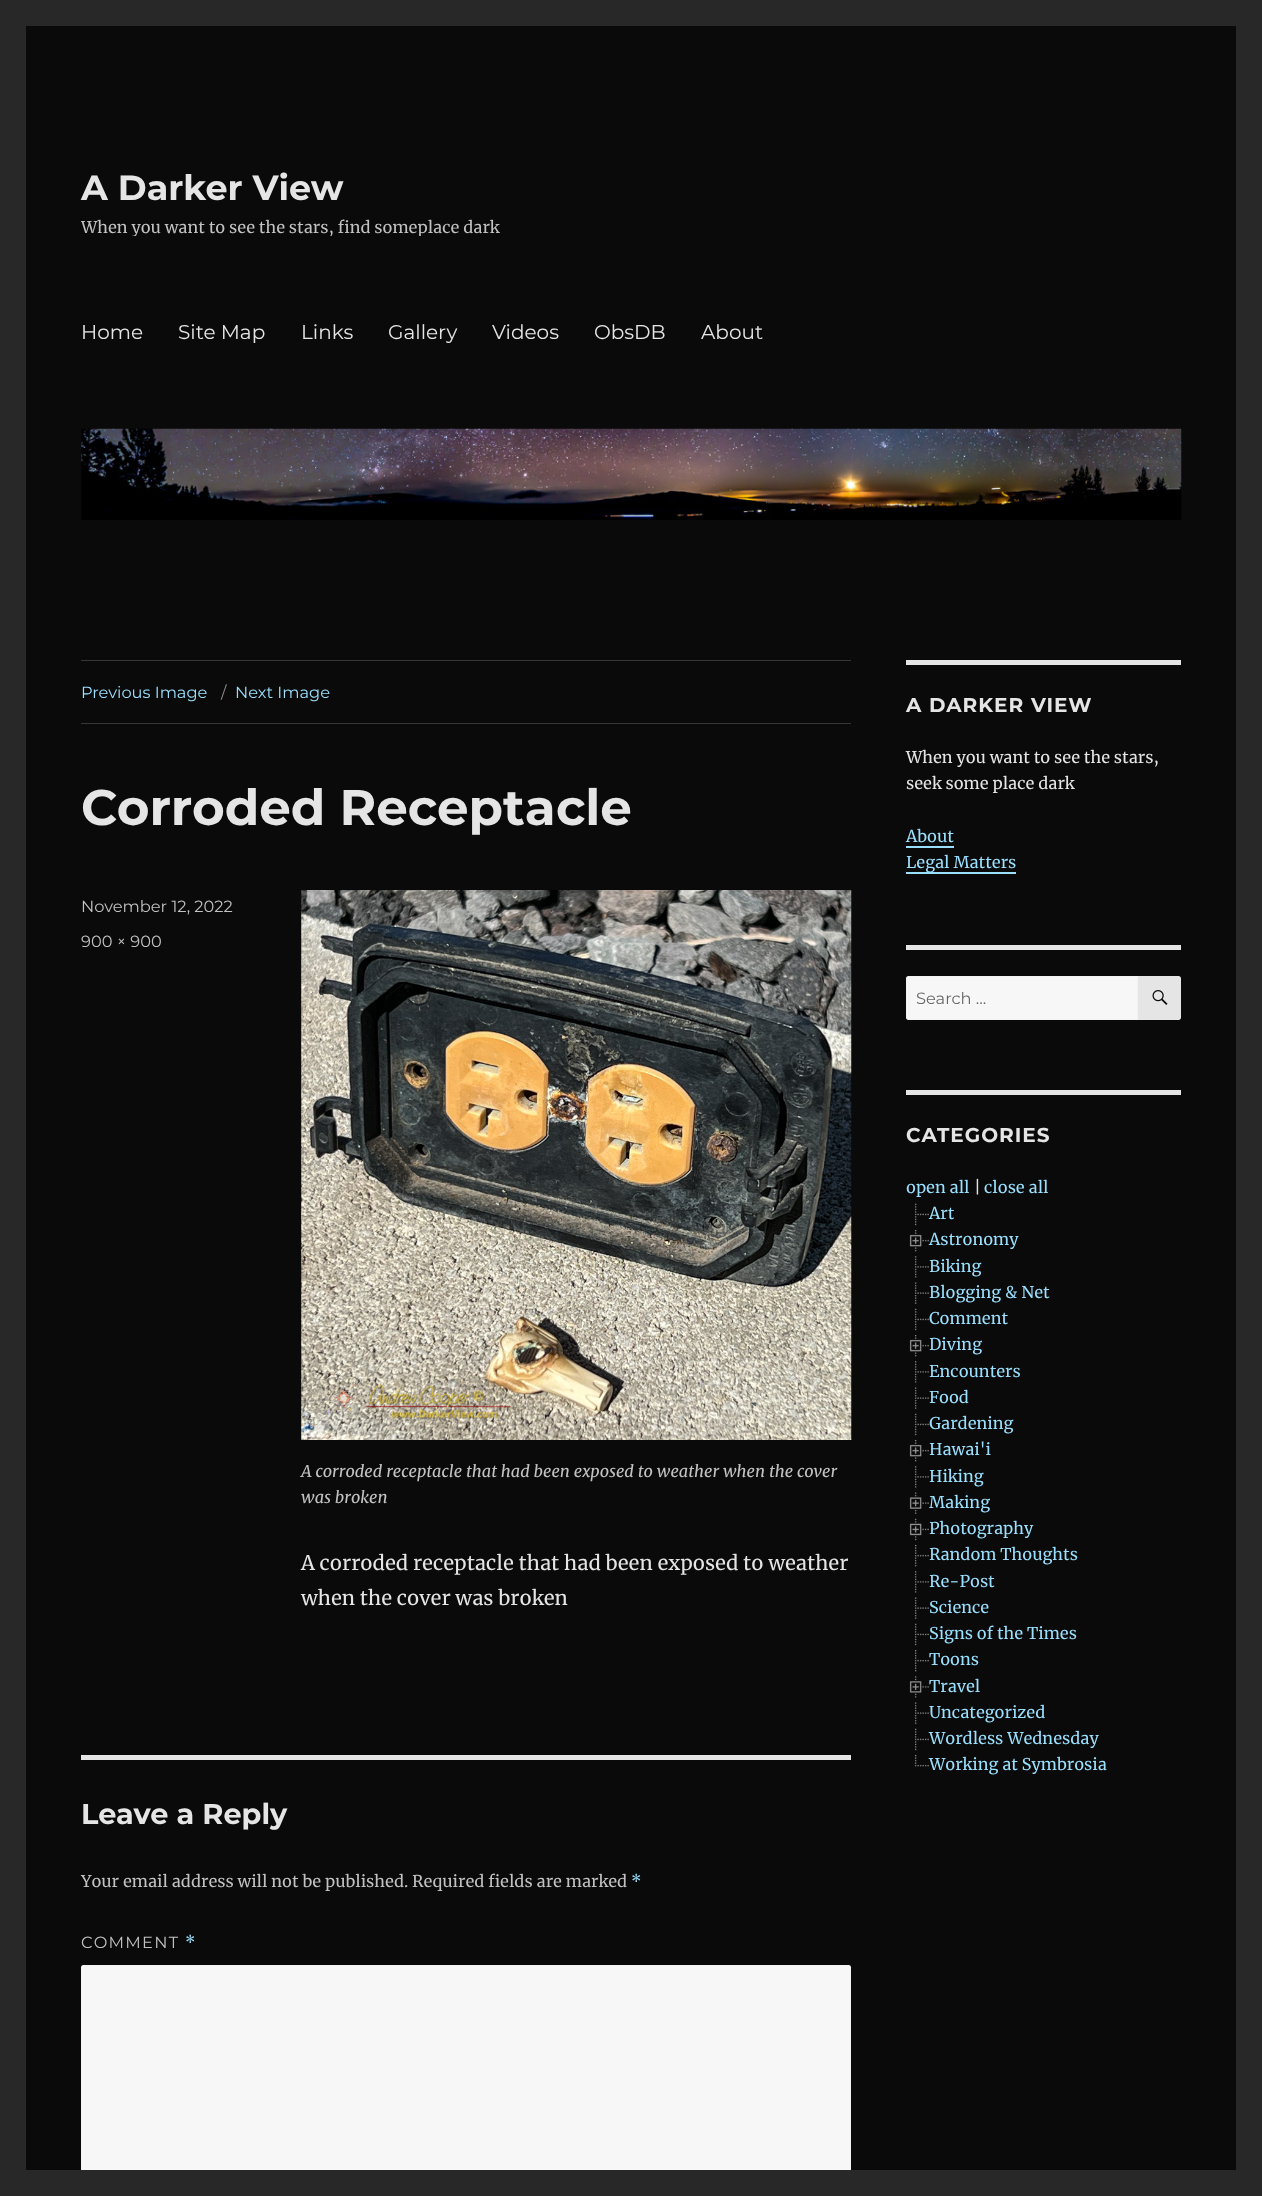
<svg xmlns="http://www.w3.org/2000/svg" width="1262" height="2196">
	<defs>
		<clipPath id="clip1"><rect x="81" y="166" width="419" height="70" /></clipPath>
	</defs>
	<rect width="100%" height="100%" fill="#282828" />
	<rect x="26" y="26" width="1210" height="2144" fill="#0A0A0A" />
	<text x="81" y="200" font-family="Montserrat" font-size="35" font-weight="100" fill="#E5E5E5">A Darker View</text>
	<g clip-path="url(#clip1)">
		<text x="81" y="233" font-family="Merriweather" font-size="16.25" fill="#C1C1C1">When you want to see the stars, find someplace dark</text>
	</g>
	<g font-family="'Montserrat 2'" font-size="20" font-weight="100" fill="#E5E5E5">
		<text x="81" y="339">Home</text>
		<text x="178" y="339">Site Map</text>
		<text x="301" y="339">Links</text>
		<text x="388" y="339">Gallery</text>
		<text x="492" y="339">Videos</text>
		<text x="594" y="339">ObsDB</text>
		<text x="701" y="339">About</text>
	</g>
	<image x="81" y="428" width="1101" height="92" href="assets/img1.png" />
	<rect x="81" y="660" width="770" height="1" fill="#363636" />
	<rect x="81" y="723" width="770" height="1" fill="#363636" />
	<text x="81" y="698" font-family="'Montserrat 2'" font-size="16.25" font-weight="100" fill="#9ADFFD">Previous Image</text>
	<text x="221" y="698" font-family="'Montserrat 2'" font-size="16.25" font-weight="100" fill="#8A8A8A">/</text>
	<text x="235" y="698" font-family="'Montserrat 2'" font-size="16.25" font-weight="100" fill="#9ADFFD">Next Image</text>
	<text x="81" y="825" font-family="Montserrat" font-size="50" font-weight="100" fill="#E5E5E5">Corroded Receptacle</text>
	<g font-family="'Montserrat 2'" font-size="16.25" font-weight="100" fill="#C1C1C1">
		<text x="81" y="912">November 12, 2022</text>
		<text x="81" y="947">900 × 900</text>
	</g>
	<image x="301" y="890" width="551" height="550" href="assets/img2.png" />
	<g font-family="Merriweather" font-size="16.25" font-style="italic" fill="#C1C1C1">
		<text x="301" y="1477">A corroded receptacle that had been exposed to weather when the cover</text>
		<text x="301" y="1503">was broken</text>
	</g>
	<g font-family="Merriweather" font-size="20" fill="#E5E5E5">
		<text x="301" y="1570">A corroded receptacle that had been exposed to weather</text>
		<text x="301" y="1605">when the cover was broken</text>
	</g>
	<rect x="81" y="1755" width="770" height="5" fill="#E5E5E5" />
	<text x="81" y="1824" font-family="Montserrat" font-size="28.75" font-weight="100" fill="#E5E5E5">Leave a Reply</text>
	<text x="81" y="1887" font-family="Merriweather" font-size="16.25" fill="#C1C1C1">Your email address will not be published. Required fields are marked</text>
	<text x="631" y="1887" font-family="Merriweather" font-size="16.25" fill="#9ADFFD">*</text>
	<text x="81" y="1948" font-family="'Montserrat 2'" font-size="16.25" font-weight="100" letter-spacing="1.25" fill="#C1C1C1">COMMENT</text>
	<text x="185" y="1948" font-family="Merriweather" font-size="16.25" letter-spacing="1.25" fill="#9ADFFD">*</text>
	<rect x="81" y="1965" width="770" height="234" rx="2.5" fill="#F7F7F7" />
	<rect x="81.5" y="1965.5" width="769" height="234" rx="2" fill="none" stroke="#E5E5E5" stroke-opacity="0.2" />
	<rect x="906" y="660" width="275" height="5" fill="#E5E5E5" />
	<text x="906" y="712" font-family="Montserrat" font-size="20" font-weight="100" letter-spacing="1" fill="#E5E5E5">A DARKER VIEW</text>
	<g font-family="Merriweather" font-size="16.25" fill="#E5E5E5">
		<text x="906" y="763">When you want to see the stars,</text>
		<text x="906" y="789">seek some place dark</text>
	</g>
	<text x="906" y="842" font-family="Merriweather" font-size="16.25" fill="#9ADFFD">About</text>
	<path d="M906 826V848H954V826V846H906Z" fill="#9ADFFD" />
	<path d="M906 853V874H1016V872H906Z" fill="#9ADFFD" />
	<text x="906" y="868" font-family="Merriweather" font-size="16.25" fill="#9ADFFD">Legal Matters</text>
	<rect x="906" y="945" width="275" height="5" fill="#E5E5E5" />
	<path d="M908.5 976H1138V1020H908.5C907 1020 906 1019 906 1017.5V978.5C906 977 907 976 908.5 976Z" fill="#F7F7F7" />
	<path d="M908.5 976.5H1137.5V1019.5H908.5C907.5 1019.5 906.5 1018.5 906.5 1017.5V978.5C906.5 977.5 907.5 976.5 908.5 976.5Z" fill="none" stroke="#E5E5E5" stroke-opacity="0.2" />
	<text x="916" y="1004" font-family="'Montserrat 2'" font-size="16.25" font-weight="100" fill="#686868">Search …</text>
	<path d="M1138 976H1178.5C1180 976 1181 977 1181 978.5V1017.5C1181 1019 1180 1020 1178.5 1020H1138Z" fill="#E5E5E5" />
	<image x="1152" y="990" width="16" height="15" href="assets/img3.png" />
	<rect x="906" y="1090" width="275" height="5" fill="#E5E5E5" />
	<text x="906" y="1142" font-family="Montserrat" font-size="20" font-weight="100" letter-spacing="1" fill="#E5E5E5">CATEGORIES</text>
	<text x="906" y="1193" font-family="Merriweather" font-size="16.25" fill="#9ADFFD">open all</text>
	<text x="974" y="1193" font-family="Merriweather" font-size="16.25" fill="#E5E5E5">|</text>
	<text x="984" y="1193" font-family="Merriweather" font-size="16.25" fill="#9ADFFD">close all</text>
	<image x="914" y="1203" width="15" height="23" href="assets/img4.png" />
	<text x="929" y="1219" font-family="Merriweather" font-size="16.25" fill="#9ADFFD">Art</text>
	<image x="909" y="1230" width="20" height="22" href="assets/img5.png" />
	<text x="929" y="1245" font-family="Merriweather" font-size="16.25" fill="#9ADFFD">Astronomy</text>
	<image x="914" y="1256" width="15" height="22" href="assets/img6.png" />
	<text x="929" y="1272" font-family="Merriweather" font-size="16.25" fill="#9ADFFD">Biking</text>
	<image x="914" y="1282" width="15" height="22" href="assets/img7.png" />
	<text x="929" y="1298" font-family="Merriweather" font-size="16.25" fill="#9ADFFD">Blogging &amp; Net</text>
	<image x="914" y="1308" width="15" height="23" href="assets/img4.png" />
	<text x="929" y="1324" font-family="Merriweather" font-size="16.25" fill="#9ADFFD">Comment</text>
	<image x="909" y="1335" width="20" height="22" href="assets/img5.png" />
	<text x="929" y="1350" font-family="Merriweather" font-size="16.25" fill="#9ADFFD">Diving</text>
	<image x="914" y="1361" width="15" height="22" href="assets/img6.png" />
	<text x="929" y="1377" font-family="Merriweather" font-size="16.25" fill="#9ADFFD">Encounters</text>
	<image x="914" y="1387" width="15" height="22" href="assets/img7.png" />
	<text x="929" y="1403" font-family="Merriweather" font-size="16.25" fill="#9ADFFD">Food</text>
	<image x="914" y="1413" width="15" height="23" href="assets/img4.png" />
	<text x="929" y="1429" font-family="Merriweather" font-size="16.25" fill="#9ADFFD">Gardening</text>
	<image x="909" y="1440" width="20" height="22" href="assets/img5.png" />
	<text x="929" y="1455" font-family="Merriweather" font-size="16.25" fill="#9ADFFD">Hawai'i</text>
	<image x="914" y="1466" width="15" height="22" href="assets/img6.png" />
	<text x="929" y="1482" font-family="Merriweather" font-size="16.25" fill="#9ADFFD">Hiking</text>
	<image x="909" y="1492" width="20" height="22" href="assets/img8.png" />
	<text x="929" y="1508" font-family="Merriweather" font-size="16.25" fill="#9ADFFD">Making</text>
	<image x="909" y="1518" width="20" height="23" href="assets/img9.png" />
	<text x="929" y="1534" font-family="Merriweather" font-size="16.25" fill="#9ADFFD">Photography</text>
	<image x="914" y="1545" width="15" height="22" href="assets/img10.png" />
	<text x="929" y="1560" font-family="Merriweather" font-size="16.25" fill="#9ADFFD">Random Thoughts</text>
	<image x="914" y="1571" width="15" height="22" href="assets/img6.png" />
	<text x="929" y="1587" font-family="Merriweather" font-size="16.25" fill="#9ADFFD">Re-Post</text>
	<image x="914" y="1597" width="15" height="22" href="assets/img7.png" />
	<text x="929" y="1613" font-family="Merriweather" font-size="16.25" fill="#9ADFFD">Science</text>
	<image x="914" y="1623" width="15" height="23" href="assets/img4.png" />
	<text x="929" y="1639" font-family="Merriweather" font-size="16.25" fill="#9ADFFD">Signs of the Times</text>
	<image x="914" y="1650" width="15" height="22" href="assets/img10.png" />
	<text x="929" y="1665" font-family="Merriweather" font-size="16.25" fill="#9ADFFD">Toons</text>
	<image x="909" y="1676" width="20" height="22" href="assets/img11.png" />
	<text x="929" y="1692" font-family="Merriweather" font-size="16.25" fill="#9ADFFD">Travel</text>
	<image x="914" y="1702" width="15" height="22" href="assets/img7.png" />
	<text x="929" y="1718" font-family="Merriweather" font-size="16.25" fill="#9ADFFD">Uncategorized</text>
	<image x="914" y="1728" width="15" height="23" href="assets/img4.png" />
	<text x="929" y="1744" font-family="Merriweather" font-size="16.25" fill="#9ADFFD">Wordless Wednesday</text>
	<image x="914" y="1755" width="15" height="12" href="assets/img12.png" />
	<text x="929" y="1770" font-family="Merriweather" font-size="16.25" fill="#9ADFFD">Working at Symbrosia</text>
	<rect x="81" y="2170" width="770" height="26" fill="#282828" />
</svg>
